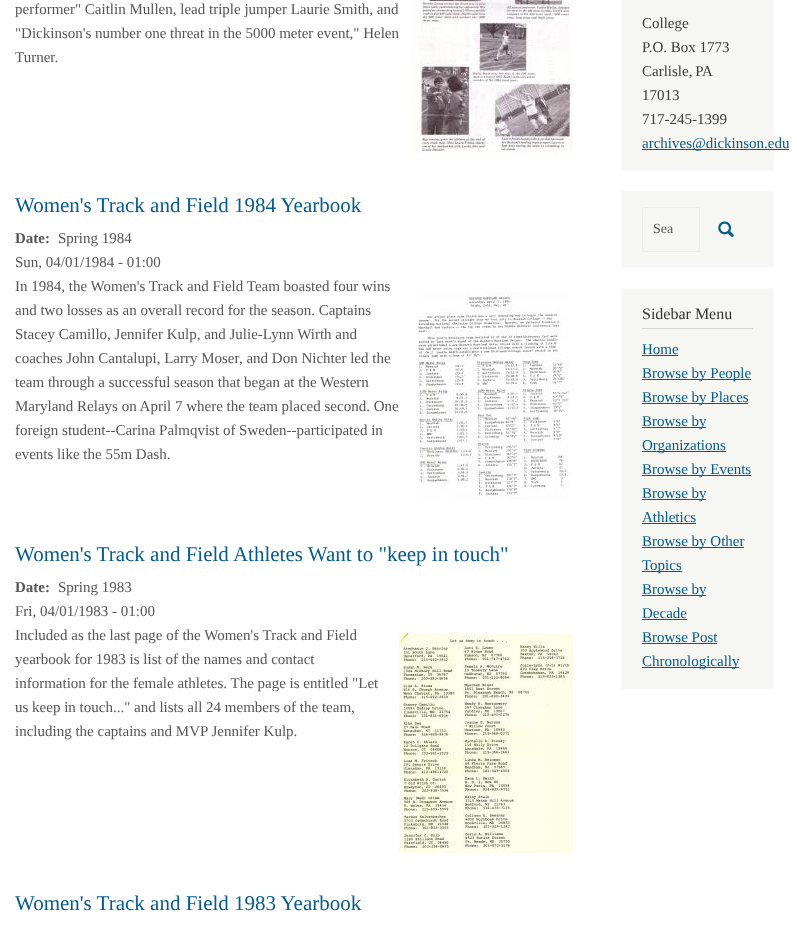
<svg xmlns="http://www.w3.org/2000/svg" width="797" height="933">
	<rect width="100%" height="100%" fill="#FFFFFF" />
	<g font-family="Liberation Serif" font-size="15" fill="#555555">
		<text x="15" y="14">performer" Caitlin Mullen, lead triple jumper Laurie Smith, and</text>
		<text x="15" y="38">"Dickinson's number one threat in the 5000 meter event," Helen</text>
		<text x="15" y="62">Turner.</text>
	</g>
	<image x="412" y="0" width="161" height="155" href="assets/img1.png" />
	<text x="15" y="212" font-family="Liberation Serif" font-size="21" fill="#055A8E">Women's Track and Field 1984 Yearbook</text>
	<text x="15" y="243" font-family="Liberation Serif" font-size="15" font-weight="700" fill="#555555">Date:</text>
	<g font-family="Liberation Serif" font-size="15" fill="#555555">
		<text x="58" y="243">Spring 1984</text>
		<text x="15" y="267">Sun, 04/01/1984 - 01:00</text>
		<text x="15" y="291">In 1984, the Women's Track and Field Team boasted four wins</text>
		<text x="15" y="315">and two losses as an overall record for the season. Captains</text>
		<text x="15" y="339">Stacey Camillo, Jennifer Kulp, and Julie-Lynn Wirth and</text>
		<text x="15" y="363">coaches John Cantalupi, Larry Moser, and Don Nichter led the</text>
		<text x="15" y="387">team through a successful season that began at the Western</text>
		<text x="15" y="411">Maryland Relays on April 7 where the team placed second. One</text>
		<text x="15" y="435">foreign student--Carina Palmqvist of Sweden--participated in</text>
		<text x="15" y="459">events like the 55m Dash.</text>
	</g>
	<image x="418" y="292" width="152" height="208" href="assets/img2.png" />
	<text x="15" y="561" font-family="Liberation Serif" font-size="21" fill="#055A8E">Women's Track and Field Athletes Want to "keep in touch"</text>
	<text x="15" y="592" font-family="Liberation Serif" font-size="15" font-weight="700" fill="#555555">Date:</text>
	<g font-family="Liberation Serif" font-size="15" fill="#555555">
		<text x="58" y="592">Spring 1983</text>
		<text x="15" y="616">Fri, 04/01/1983 - 01:00</text>
		<text x="15" y="640">Included as the last page of the Women's Track and Field</text>
		<text x="15" y="664">yearbook for 1983 is list of the names and contact</text>
		<text x="15" y="688">information for the female athletes. The page is entitled "Let</text>
		<text x="15" y="712">us keep in touch..." and lists all 24 members of the team,</text>
		<text x="15" y="736">including the captains and MVP Jennifer Kulp.</text>
	</g>
	<image x="399" y="633" width="174" height="220" href="assets/img3.png" />
	<text x="15" y="910" font-family="Liberation Serif" font-size="21" fill="#055A8E">Women's Track and Field 1983 Yearbook</text>
	<rect x="621.5" y="-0.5" width="152" height="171" fill="#F6F6F2" stroke="#F9F9F9" />
	<g font-family="Liberation Serif" font-size="15" fill="#3B3B3B">
		<text x="642" y="28">College</text>
		<text x="642" y="52">P.O. Box 1773</text>
		<text x="642" y="76" word-spacing="-1">Carlisle, PA</text>
		<text x="642" y="100">17013</text>
		<text x="642" y="124">717-245-1399</text>
	</g>
	<rect x="642" y="149" width="147" height="1" fill="#055A8E" />
	<text x="642" y="148" font-family="Liberation Serif" font-size="15" fill="#055A8E">archives@dickinson.edu</text>
	<rect x="621.5" y="191.5" width="152" height="76" fill="#F6F6F2" stroke="#F9F9F9" />
	<path d="M645 207.5H699.5V251.5H645C643.5 251.5 642.5 250.5 642.5 249V210C642.5 208.5 643.5 207.5 645 207.5Z" fill="none" stroke="#EDEDED" />
	<text x="653" y="233" font-family="Liberation Serif" font-size="14" fill="#56595B">Sea</text>
	<image x="718" y="221" width="16" height="16" href="assets/img4.png" />
	<rect x="621.5" y="288.5" width="152" height="400" fill="#F6F6F2" stroke="#F9F9F9" />
	<rect x="642" y="328" width="111" height="1" fill="#D6D6D6" />
	<text x="642" y="319" font-family="Liberation Serif" font-size="16" fill="#333333">Sidebar Menu</text>
	<text x="642" y="354" font-family="Liberation Serif" font-size="15" fill="#055A8E">Home</text>
	<rect x="642" y="355" width="36" height="1" fill="#055A8E" />
	<rect x="642" y="379" width="109" height="1" fill="#055A8E" />
	<text x="642" y="378" font-family="Liberation Serif" font-size="15" fill="#055A8E">Browse by People</text>
	<rect x="642" y="403" width="106" height="1" fill="#055A8E" />
	<text x="642" y="402" font-family="Liberation Serif" font-size="15" fill="#055A8E">Browse by Places</text>
	<rect x="642" y="427" width="64" height="1" fill="#055A8E" />
	<text x="642" y="426" font-family="Liberation Serif" font-size="15" fill="#055A8E">Browse by</text>
	<rect x="642" y="451" width="84" height="1" fill="#055A8E" />
	<text x="642" y="450" font-family="Liberation Serif" font-size="15" fill="#055A8E">Organizations</text>
	<rect x="642" y="475" width="109" height="1" fill="#055A8E" />
	<text x="642" y="474" font-family="Liberation Serif" font-size="15" fill="#055A8E">Browse by Events</text>
	<rect x="642" y="499" width="64" height="1" fill="#055A8E" />
	<g font-family="Liberation Serif" font-size="15" fill="#055A8E">
		<text x="642" y="498">Browse by</text>
		<text x="642" y="522">Athletics</text>
	</g>
	<rect x="642" y="523" width="54" height="1" fill="#055A8E" />
	<rect x="642" y="547" width="102" height="1" fill="#055A8E" />
	<text x="642" y="546" font-family="Liberation Serif" font-size="15" fill="#055A8E">Browse by Other</text>
	<rect x="642" y="571" width="40" height="1" fill="#055A8E" />
	<text x="642" y="570" font-family="Liberation Serif" font-size="15" fill="#055A8E">Topics</text>
	<rect x="642" y="595" width="64" height="1" fill="#055A8E" />
	<g font-family="Liberation Serif" font-size="15" fill="#055A8E">
		<text x="642" y="594">Browse by</text>
		<text x="642" y="618">Decade</text>
	</g>
	<rect x="642" y="619" width="45" height="1" fill="#055A8E" />
	<text x="642" y="642" font-family="Liberation Serif" font-size="15" fill="#055A8E">Browse Post</text>
	<rect x="642" y="643" width="75" height="1" fill="#055A8E" />
	<rect x="642" y="667" width="97" height="1" fill="#055A8E" />
	<text x="642" y="666" font-family="Liberation Serif" font-size="15" fill="#055A8E">Chronologically</text>
</svg>
